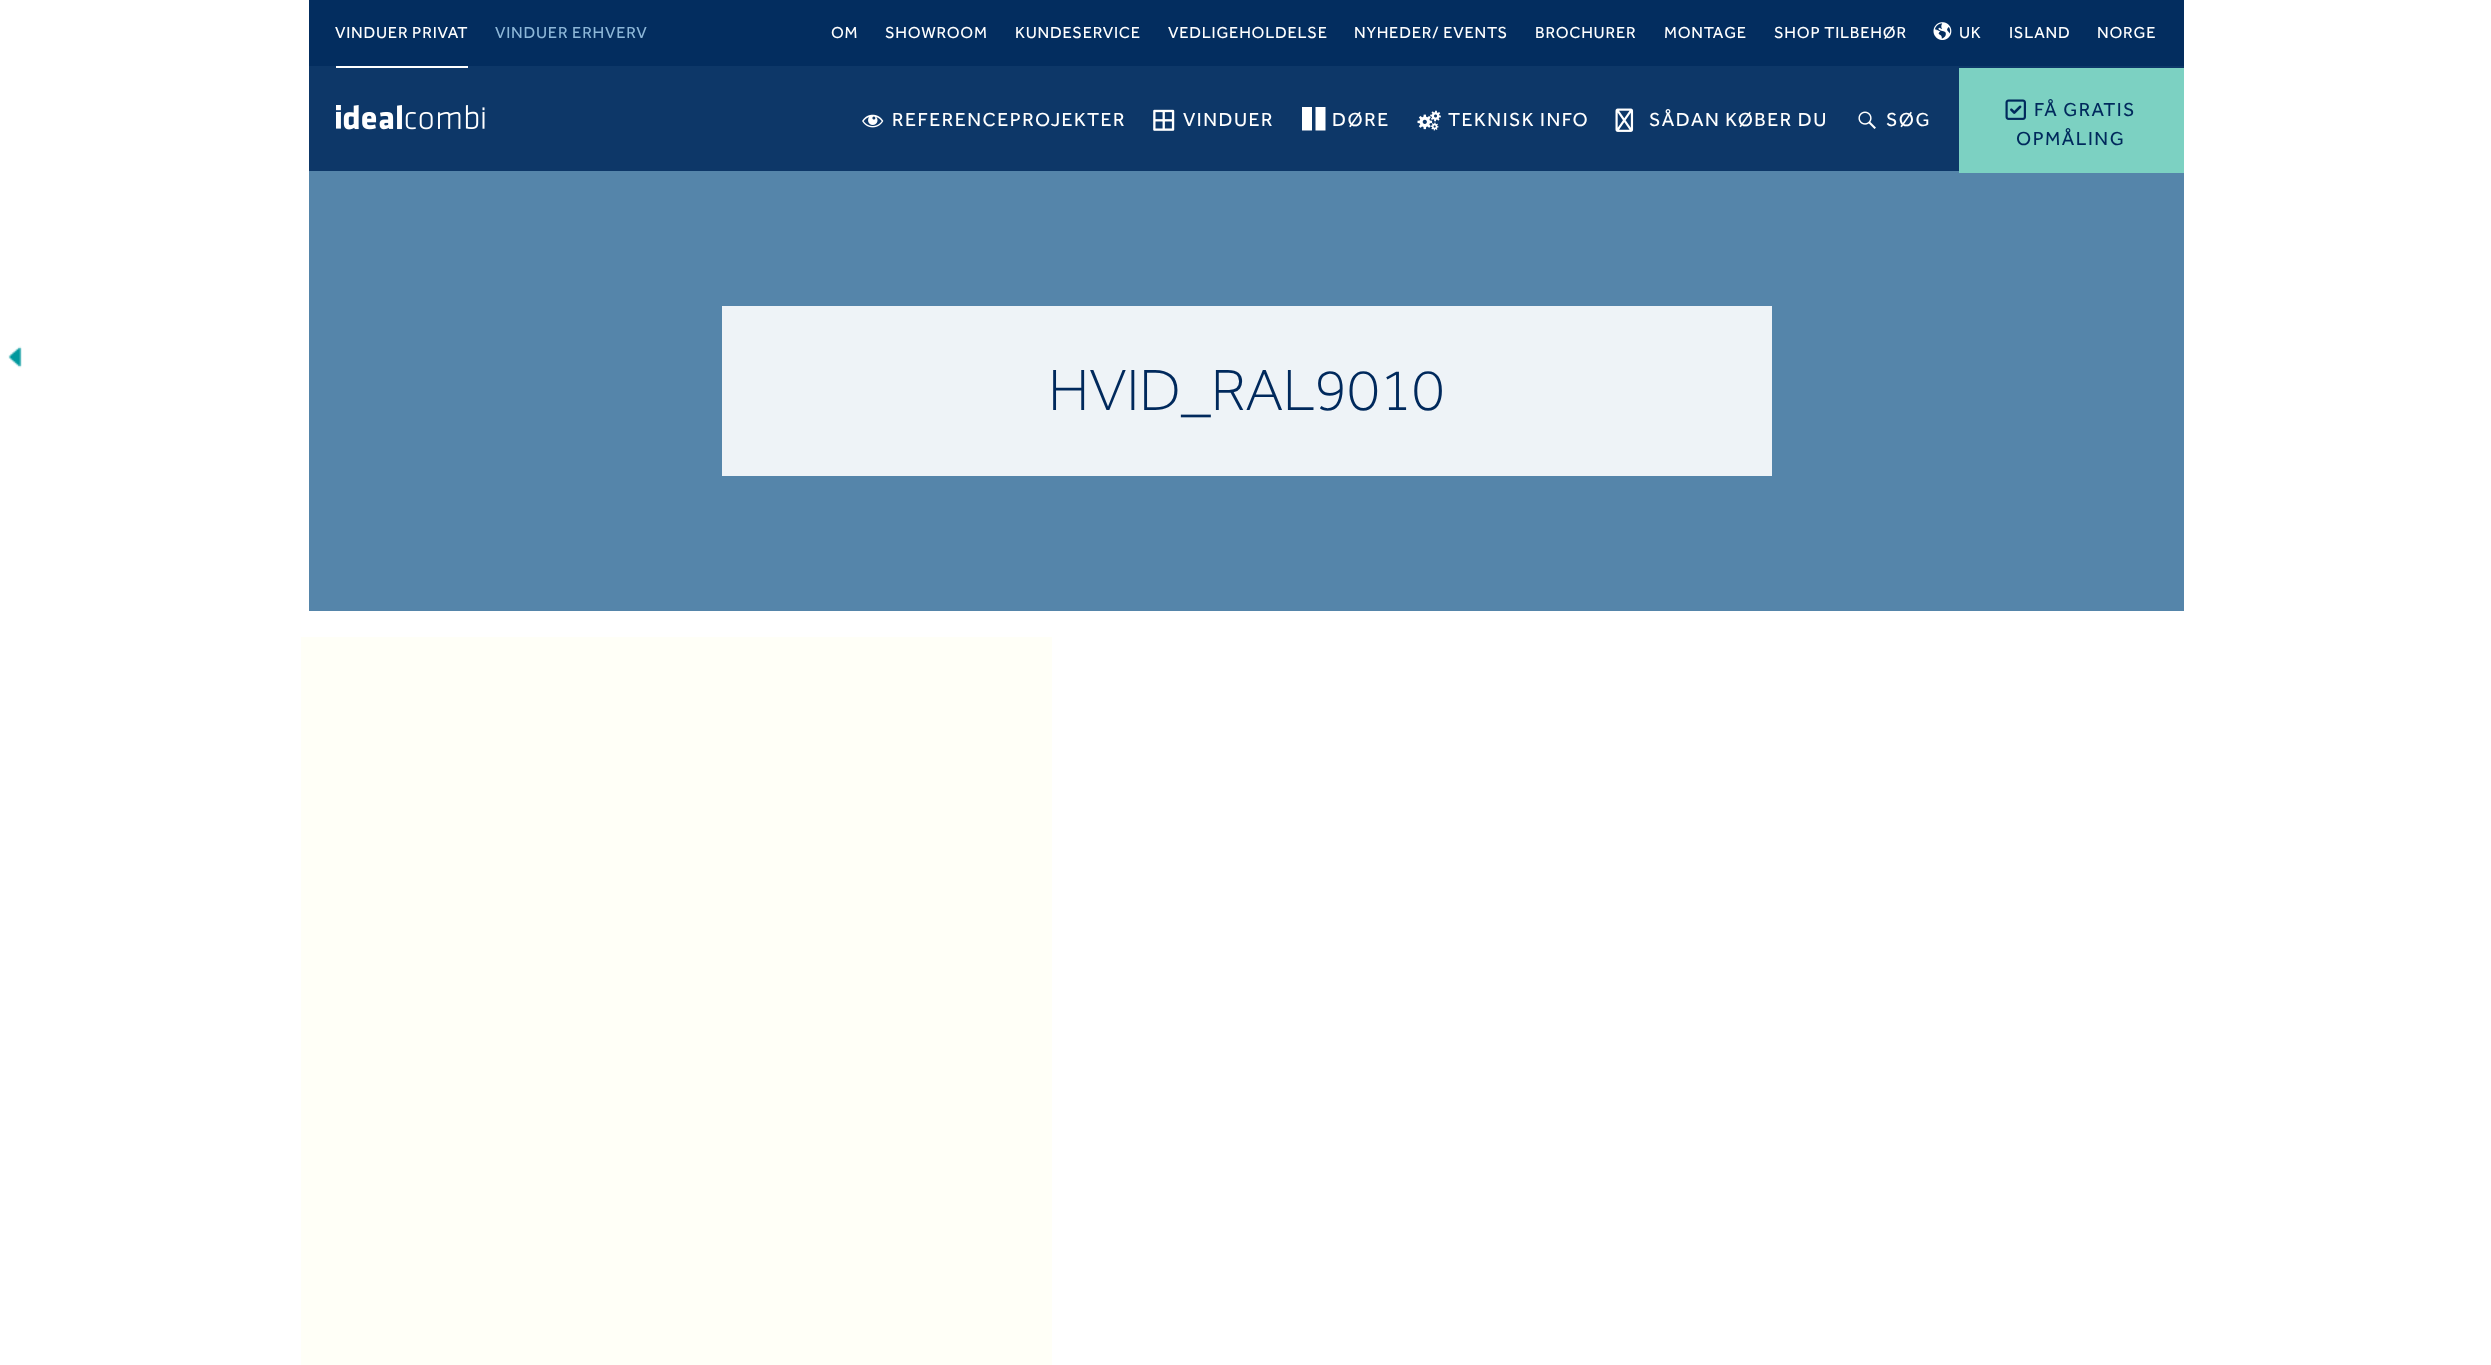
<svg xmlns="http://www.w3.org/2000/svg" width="2491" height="1365">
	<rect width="100%" height="100%" fill="#FFFFFF" />
	<image x="8" y="346" width="14" height="22" href="assets/img1.png" />
	<rect x="309" y="171" width="1875" height="440" fill="#5585AA" />
	<rect x="309" y="0" width="1875" height="66" fill="#032D5F" />
	<rect x="309" y="66" width="1875" height="105" fill="#0D3768" />
	<rect x="336" y="66" width="132" height="2" fill="#FFFFFF" />
	<text x="335" y="38" font-family="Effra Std" font-size="16.5" letter-spacing="0.75" fill="#FFFFFF">VINDUER PRIVAT</text>
	<text x="495" y="38" font-family="Effra Std" font-size="16.5" letter-spacing="0.75" fill="#8DB7D8">VINDUER ERHVERV</text>
	<g font-family="Effra Std" font-size="16.5" letter-spacing="0.75" fill="#FFFFFF">
		<text x="831" y="38">OM</text>
		<text x="885" y="38">SHOWROOM</text>
		<text x="1015" y="38">KUNDESERVICE</text>
		<text x="1168" y="38">VEDLIGEHOLDELSE</text>
		<text x="1354" y="38">NYHEDER/ EVENTS</text>
		<text x="1535" y="38">BROCHURER</text>
		<text x="1664" y="38">MONTAGE</text>
		<text x="1774" y="38">SHOP TILBEHØR</text>
	</g>
	<image x="1933" y="22" width="19" height="18" href="assets/img2.png" />
	<g font-family="Effra Std" font-size="16.5" letter-spacing="0.75" fill="#FFFFFF">
		<text x="1959" y="38">UK</text>
		<text x="2009" y="38">ISLAND</text>
		<text x="2097" y="38">NORGE</text>
	</g>
	<image x="336" y="105" width="149" height="25" href="assets/img3.png" />
	<image x="862" y="114" width="22" height="14" href="assets/img4.png" />
	<text x="892" y="126" font-family="Effra Std" font-size="19.5" letter-spacing="1.5" fill="#FFFFFF">REFERENCEPROJEKTER</text>
	<image x="1153" y="109" width="22" height="22" href="assets/img5.png" />
	<text x="1183" y="126" font-family="Effra Std" font-size="19.5" letter-spacing="1.5" fill="#FFFFFF">VINDUER</text>
	<path d="M1302 107H1312V130.5H1302ZM1315.5 107H1325.5V130.5H1315.5Z" fill="#FFFFFF" />
	<text x="1332" y="126" font-family="Effra Std" font-size="19.5" letter-spacing="1.5" fill="#FFFFFF">DØRE</text>
	<image x="1417" y="110" width="24" height="21" href="assets/img6.png" />
	<text x="1448" y="126" font-family="Effra Std" font-size="19.5" letter-spacing="1.5" fill="#FFFFFF">TEKNISK INFO</text>
	<image x="1615" y="108" width="19" height="24" href="assets/img7.png" />
	<text x="1649" y="126" font-family="Effra Std" font-size="19.5" letter-spacing="1.5" fill="#FFFFFF">SÅDAN KØBER DU</text>
	<image x="1858" y="111" width="18" height="18" href="assets/img8.png" />
	<text x="1886" y="126" font-family="Effra Std" font-size="19.5" letter-spacing="1.5" fill="#FFFFFF">SØG</text>
	<rect x="1959" y="68" width="225" height="105" fill="#7CD1C2" />
	<image x="2005" y="99" width="21" height="21" href="assets/img9.png" />
	<g font-family="Effra Std" font-size="19.5" letter-spacing="1.5" fill="#00295C">
		<text x="2034" y="116">FÅ GRATIS</text>
		<text x="2016" y="145">OPMÅLING</text>
	</g>
	<rect x="722" y="306" width="1050" height="170" fill="#EEF3F7" />
	<text x="1048" y="410" font-family="Effra Std" font-size="60" font-weight="300" letter-spacing="-0.4" fill="#00295C">HVID_RAL9010</text>
	<rect x="301" y="637" width="751" height="728" fill="#FFFFF7" />
</svg>
